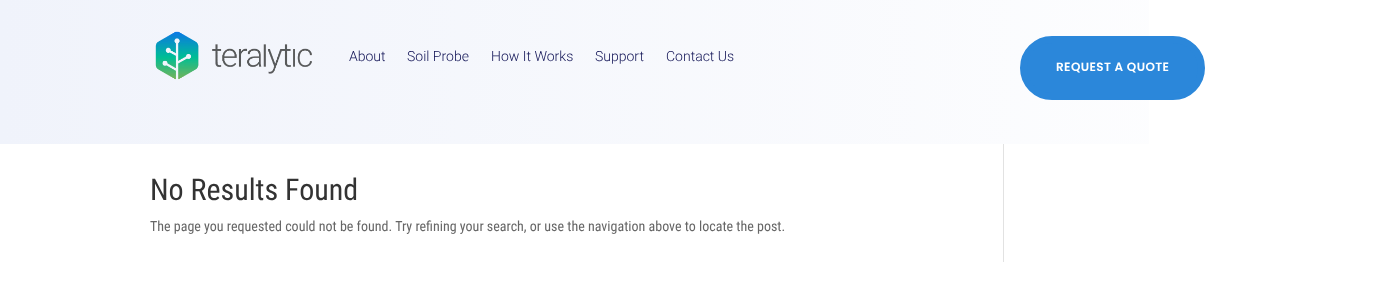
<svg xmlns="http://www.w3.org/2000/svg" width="1379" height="306">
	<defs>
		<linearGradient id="g1" gradientUnits="userSpaceOnUse" x1="0" y1="72" x2="1379" y2="72"><stop offset="0" stop-color="#F0F3FB" /><stop offset="1" stop-color="#FFFFFF" /></linearGradient>
	</defs>
	<rect width="100%" height="100%" fill="#FFFFFF" />
	<rect x="0" y="0" width="1149" height="144" fill="url(#g1)" />
	<image x="155" y="31" width="157" height="49" href="assets/img1.png" />
	<g font-family="Roboto" font-size="14" font-weight="300" fill="#0F1154">
		<text x="349" y="61">About</text>
		<text x="407" y="61">Soil Probe</text>
		<text x="491" y="61">How It Works</text>
		<text x="595" y="61">Support</text>
		<text x="666" y="61">Contact Us</text>
	</g>
	<rect x="1023.5" y="39.5" width="178" height="57" rx="28.5" fill="#2B87DA" stroke="#2B87DA" stroke-width="7" />
	<text x="1056" y="71" font-family="Poppins" font-size="12" font-weight="600" letter-spacing="0.4" fill="#FFFFFF">REQUEST A QUOTE</text>
	<text x="150" y="200" font-family="Roboto Condensed" font-size="30" fill="#333333">No Results Found</text>
	<text x="150" y="231" font-family="Roboto Condensed" font-size="14" fill="#666666">The page you requested could not be found. Try refining your search, or use the navigation above to locate the post.</text>
	<rect x="1003" y="144" width="1" height="118" fill="#E2E2E2" />
</svg>
